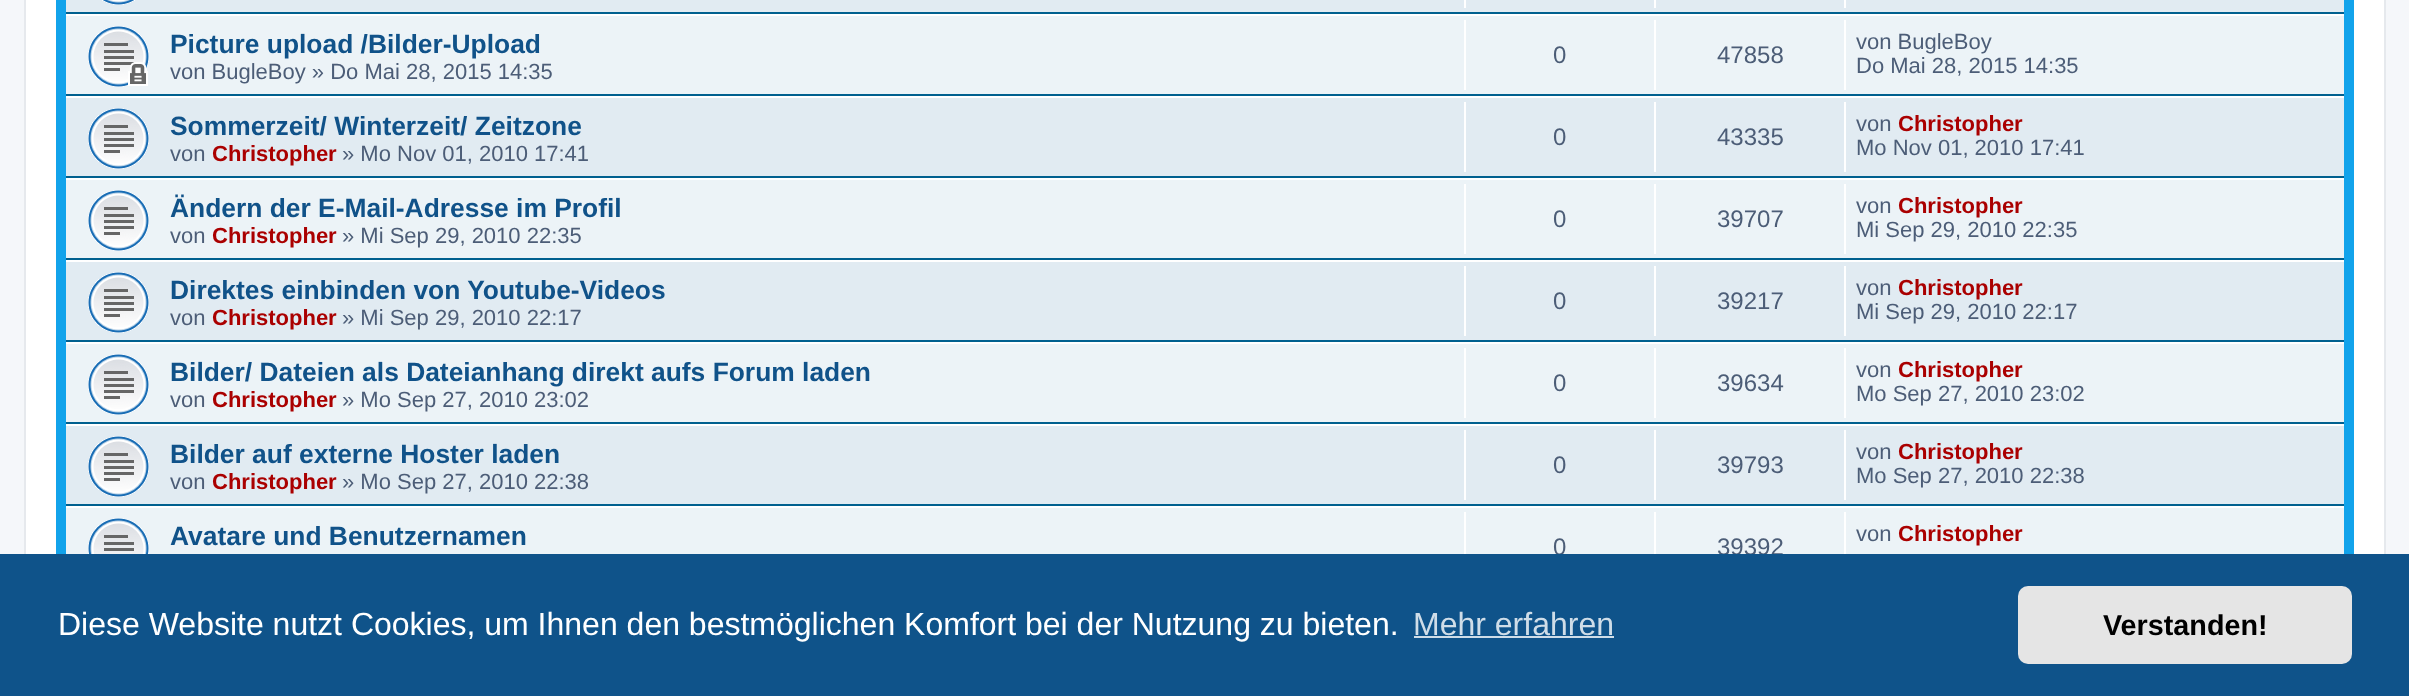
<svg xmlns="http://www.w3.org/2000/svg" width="2409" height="696">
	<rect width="100%" height="100%" fill="#F5F7FA" />
	<rect x="26" y="0" width="2358" height="554" fill="#FFFFFF" />
	<rect x="25" y="-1" width="2360" height="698" fill="none" stroke="#E6E9ED" stroke-width="2" />
	<rect x="56" y="0" width="2298" height="554" fill="#12A3EB" />
	<rect x="66" y="0" width="2278" height="12" fill="#E1EBF2" />
	<rect x="66" y="12" width="2278" height="2" fill="#00608F" />
	<image x="102" y="0" width="33" height="5" href="assets/img1.png" />
	<rect x="1464" y="0" width="2" height="8" fill="#FFFFFF" />
	<rect x="1654" y="0" width="2" height="8" fill="#FFFFFF" />
	<rect x="1844" y="0" width="2" height="8" fill="#FFFFFF" />
	<rect x="66" y="16" width="2278" height="78" fill="#ECF3F7" />
	<rect x="66" y="14" width="2278" height="2" fill="#FFFFFF" />
	<rect x="66" y="94" width="2278" height="2" fill="#00608F" />
	<image x="88" y="26" width="61" height="61" href="assets/img2.png" />
	<text x="170" y="53" font-family="Liberation Sans" font-size="26.4" font-weight="700" fill="#105289">Picture upload /Bilder-Upload</text>
	<text x="170" y="79" font-family="Liberation Sans" font-size="22" fill="#4C5D77">von BugleBoy » Do Mai 28, 2015 14:35</text>
	<rect x="1464" y="20" width="2" height="70" fill="#FFFFFF" />
	<text x="1553" y="63" font-family="Liberation Sans" font-size="24" fill="#4C5D77">0</text>
	<rect x="1654" y="20" width="2" height="70" fill="#FFFFFF" />
	<text x="1717" y="63" font-family="Liberation Sans" font-size="24" fill="#4C5D77">47858</text>
	<rect x="1844" y="20" width="2" height="70" fill="#FFFFFF" />
	<g font-family="Liberation Sans" font-size="22" fill="#4C5D77">
		<text x="1856" y="49">von BugleBoy</text>
		<text x="1856" y="73">Do Mai 28, 2015 14:35</text>
	</g>
	<rect x="66" y="98" width="2278" height="78" fill="#E1EBF2" />
	<rect x="66" y="96" width="2278" height="2" fill="#FFFFFF" />
	<rect x="66" y="176" width="2278" height="2" fill="#00608F" />
	<image x="88" y="108" width="61" height="61" href="assets/img3.png" />
	<text x="170" y="135" font-family="Liberation Sans" font-size="26.4" font-weight="700" fill="#105289">Sommerzeit/ Winterzeit/ Zeitzone</text>
	<text x="170" y="161" font-family="Liberation Sans" font-size="22" fill="#4C5D77">von</text>
	<text x="212" y="161" font-family="Liberation Sans" font-size="22" font-weight="700" fill="#AA0000">Christopher</text>
	<text x="342" y="161" font-family="Liberation Sans" font-size="22" fill="#4C5D77">» Mo Nov 01, 2010 17:41</text>
	<rect x="1464" y="102" width="2" height="70" fill="#FFFFFF" />
	<text x="1553" y="145" font-family="Liberation Sans" font-size="24" fill="#4C5D77">0</text>
	<rect x="1654" y="102" width="2" height="70" fill="#FFFFFF" />
	<text x="1717" y="145" font-family="Liberation Sans" font-size="24" fill="#4C5D77">43335</text>
	<rect x="1844" y="102" width="2" height="70" fill="#FFFFFF" />
	<text x="1856" y="131" font-family="Liberation Sans" font-size="22" fill="#4C5D77">von</text>
	<text x="1898" y="131" font-family="Liberation Sans" font-size="22" font-weight="700" fill="#AA0000">Christopher</text>
	<text x="1856" y="155" font-family="Liberation Sans" font-size="22" fill="#4C5D77">Mo Nov 01, 2010 17:41</text>
	<rect x="66" y="180" width="2278" height="78" fill="#ECF3F7" />
	<rect x="66" y="178" width="2278" height="2" fill="#FFFFFF" />
	<rect x="66" y="258" width="2278" height="2" fill="#00608F" />
	<image x="88" y="190" width="61" height="61" href="assets/img4.png" />
	<text x="170" y="217" font-family="Liberation Sans" font-size="26.4" font-weight="700" fill="#105289">Ändern der E-Mail-Adresse im Profil</text>
	<text x="170" y="243" font-family="Liberation Sans" font-size="22" fill="#4C5D77">von</text>
	<text x="212" y="243" font-family="Liberation Sans" font-size="22" font-weight="700" fill="#AA0000">Christopher</text>
	<text x="342" y="243" font-family="Liberation Sans" font-size="22" fill="#4C5D77">» Mi Sep 29, 2010 22:35</text>
	<rect x="1464" y="184" width="2" height="70" fill="#FFFFFF" />
	<text x="1553" y="227" font-family="Liberation Sans" font-size="24" fill="#4C5D77">0</text>
	<rect x="1654" y="184" width="2" height="70" fill="#FFFFFF" />
	<text x="1717" y="227" font-family="Liberation Sans" font-size="24" fill="#4C5D77">39707</text>
	<rect x="1844" y="184" width="2" height="70" fill="#FFFFFF" />
	<text x="1856" y="213" font-family="Liberation Sans" font-size="22" fill="#4C5D77">von</text>
	<text x="1898" y="213" font-family="Liberation Sans" font-size="22" font-weight="700" fill="#AA0000">Christopher</text>
	<text x="1856" y="237" font-family="Liberation Sans" font-size="22" fill="#4C5D77">Mi Sep 29, 2010 22:35</text>
	<rect x="66" y="262" width="2278" height="78" fill="#E1EBF2" />
	<rect x="66" y="260" width="2278" height="2" fill="#FFFFFF" />
	<rect x="66" y="340" width="2278" height="2" fill="#00608F" />
	<image x="88" y="272" width="61" height="61" href="assets/img3.png" />
	<text x="170" y="299" font-family="Liberation Sans" font-size="26.4" font-weight="700" fill="#105289">Direktes einbinden von Youtube-Videos</text>
	<text x="170" y="325" font-family="Liberation Sans" font-size="22" fill="#4C5D77">von</text>
	<text x="212" y="325" font-family="Liberation Sans" font-size="22" font-weight="700" fill="#AA0000">Christopher</text>
	<text x="342" y="325" font-family="Liberation Sans" font-size="22" fill="#4C5D77">» Mi Sep 29, 2010 22:17</text>
	<rect x="1464" y="266" width="2" height="70" fill="#FFFFFF" />
	<text x="1553" y="309" font-family="Liberation Sans" font-size="24" fill="#4C5D77">0</text>
	<rect x="1654" y="266" width="2" height="70" fill="#FFFFFF" />
	<text x="1717" y="309" font-family="Liberation Sans" font-size="24" fill="#4C5D77">39217</text>
	<rect x="1844" y="266" width="2" height="70" fill="#FFFFFF" />
	<text x="1856" y="295" font-family="Liberation Sans" font-size="22" fill="#4C5D77">von</text>
	<text x="1898" y="295" font-family="Liberation Sans" font-size="22" font-weight="700" fill="#AA0000">Christopher</text>
	<text x="1856" y="319" font-family="Liberation Sans" font-size="22" fill="#4C5D77">Mi Sep 29, 2010 22:17</text>
	<rect x="66" y="344" width="2278" height="78" fill="#ECF3F7" />
	<rect x="66" y="342" width="2278" height="2" fill="#FFFFFF" />
	<rect x="66" y="422" width="2278" height="2" fill="#00608F" />
	<image x="88" y="354" width="61" height="61" href="assets/img4.png" />
	<text x="170" y="381" font-family="Liberation Sans" font-size="26.4" font-weight="700" fill="#105289">Bilder/ Dateien als Dateianhang direkt aufs Forum laden</text>
	<text x="170" y="407" font-family="Liberation Sans" font-size="22" fill="#4C5D77">von</text>
	<text x="212" y="407" font-family="Liberation Sans" font-size="22" font-weight="700" fill="#AA0000">Christopher</text>
	<text x="342" y="407" font-family="Liberation Sans" font-size="22" fill="#4C5D77">» Mo Sep 27, 2010 23:02</text>
	<rect x="1464" y="348" width="2" height="70" fill="#FFFFFF" />
	<text x="1553" y="391" font-family="Liberation Sans" font-size="24" fill="#4C5D77">0</text>
	<rect x="1654" y="348" width="2" height="70" fill="#FFFFFF" />
	<text x="1717" y="391" font-family="Liberation Sans" font-size="24" fill="#4C5D77">39634</text>
	<rect x="1844" y="348" width="2" height="70" fill="#FFFFFF" />
	<text x="1856" y="377" font-family="Liberation Sans" font-size="22" fill="#4C5D77">von</text>
	<text x="1898" y="377" font-family="Liberation Sans" font-size="22" font-weight="700" fill="#AA0000">Christopher</text>
	<text x="1856" y="401" font-family="Liberation Sans" font-size="22" fill="#4C5D77">Mo Sep 27, 2010 23:02</text>
	<rect x="66" y="426" width="2278" height="78" fill="#E1EBF2" />
	<rect x="66" y="424" width="2278" height="2" fill="#FFFFFF" />
	<rect x="66" y="504" width="2278" height="2" fill="#00608F" />
	<image x="88" y="436" width="61" height="61" href="assets/img3.png" />
	<text x="170" y="463" font-family="Liberation Sans" font-size="26.4" font-weight="700" fill="#105289">Bilder auf externe Hoster laden</text>
	<text x="170" y="489" font-family="Liberation Sans" font-size="22" fill="#4C5D77">von</text>
	<text x="212" y="489" font-family="Liberation Sans" font-size="22" font-weight="700" fill="#AA0000">Christopher</text>
	<text x="342" y="489" font-family="Liberation Sans" font-size="22" fill="#4C5D77">» Mo Sep 27, 2010 22:38</text>
	<rect x="1464" y="430" width="2" height="70" fill="#FFFFFF" />
	<text x="1553" y="473" font-family="Liberation Sans" font-size="24" fill="#4C5D77">0</text>
	<rect x="1654" y="430" width="2" height="70" fill="#FFFFFF" />
	<text x="1717" y="473" font-family="Liberation Sans" font-size="24" fill="#4C5D77">39793</text>
	<rect x="1844" y="430" width="2" height="70" fill="#FFFFFF" />
	<text x="1856" y="459" font-family="Liberation Sans" font-size="22" fill="#4C5D77">von</text>
	<text x="1898" y="459" font-family="Liberation Sans" font-size="22" font-weight="700" fill="#AA0000">Christopher</text>
	<text x="1856" y="483" font-family="Liberation Sans" font-size="22" fill="#4C5D77">Mo Sep 27, 2010 22:38</text>
	<rect x="66" y="508" width="2278" height="46" fill="#ECF3F7" />
	<rect x="66" y="506" width="2278" height="2" fill="#FFFFFF" />
	<image x="88" y="518" width="61" height="36" href="assets/img5.png" />
	<text x="170" y="545" font-family="Liberation Sans" font-size="26.4" font-weight="700" fill="#105289">Avatare und Benutzernamen</text>
	<rect x="1464" y="512" width="2" height="42" fill="#FFFFFF" />
	<text x="1553" y="555" font-family="Liberation Sans" font-size="24" fill="#4C5D77">0</text>
	<rect x="1654" y="512" width="2" height="42" fill="#FFFFFF" />
	<text x="1717" y="555" font-family="Liberation Sans" font-size="24" fill="#4C5D77">39392</text>
	<rect x="1844" y="512" width="2" height="42" fill="#FFFFFF" />
	<text x="1856" y="541" font-family="Liberation Sans" font-size="22" fill="#4C5D77">von</text>
	<text x="1898" y="541" font-family="Liberation Sans" font-size="22" font-weight="700" fill="#AA0000">Christopher</text>
	<rect x="0" y="554" width="2409" height="142" fill="#0F538A" />
	<text x="58" y="635" font-family="Liberation Sans" font-size="32" fill="#FFFFFF">Diese Website nutzt Cookies, um Ihnen den bestmöglichen Komfort bei der Nutzung zu bieten.</text>
	<text x="1413" y="635" font-family="Liberation Sans" font-size="32" fill="#CFDDE8">Mehr erfahren</text>
	<rect x="1414" y="636" width="200" height="2" fill="#CFDDE8" />
	<rect x="2018" y="586" width="334" height="78" rx="10" fill="#E5E5E5" />
	<text x="2103" y="635" font-family="Liberation Sans" font-size="28.75" font-weight="700" fill="#000000">Verstanden!</text>
</svg>
